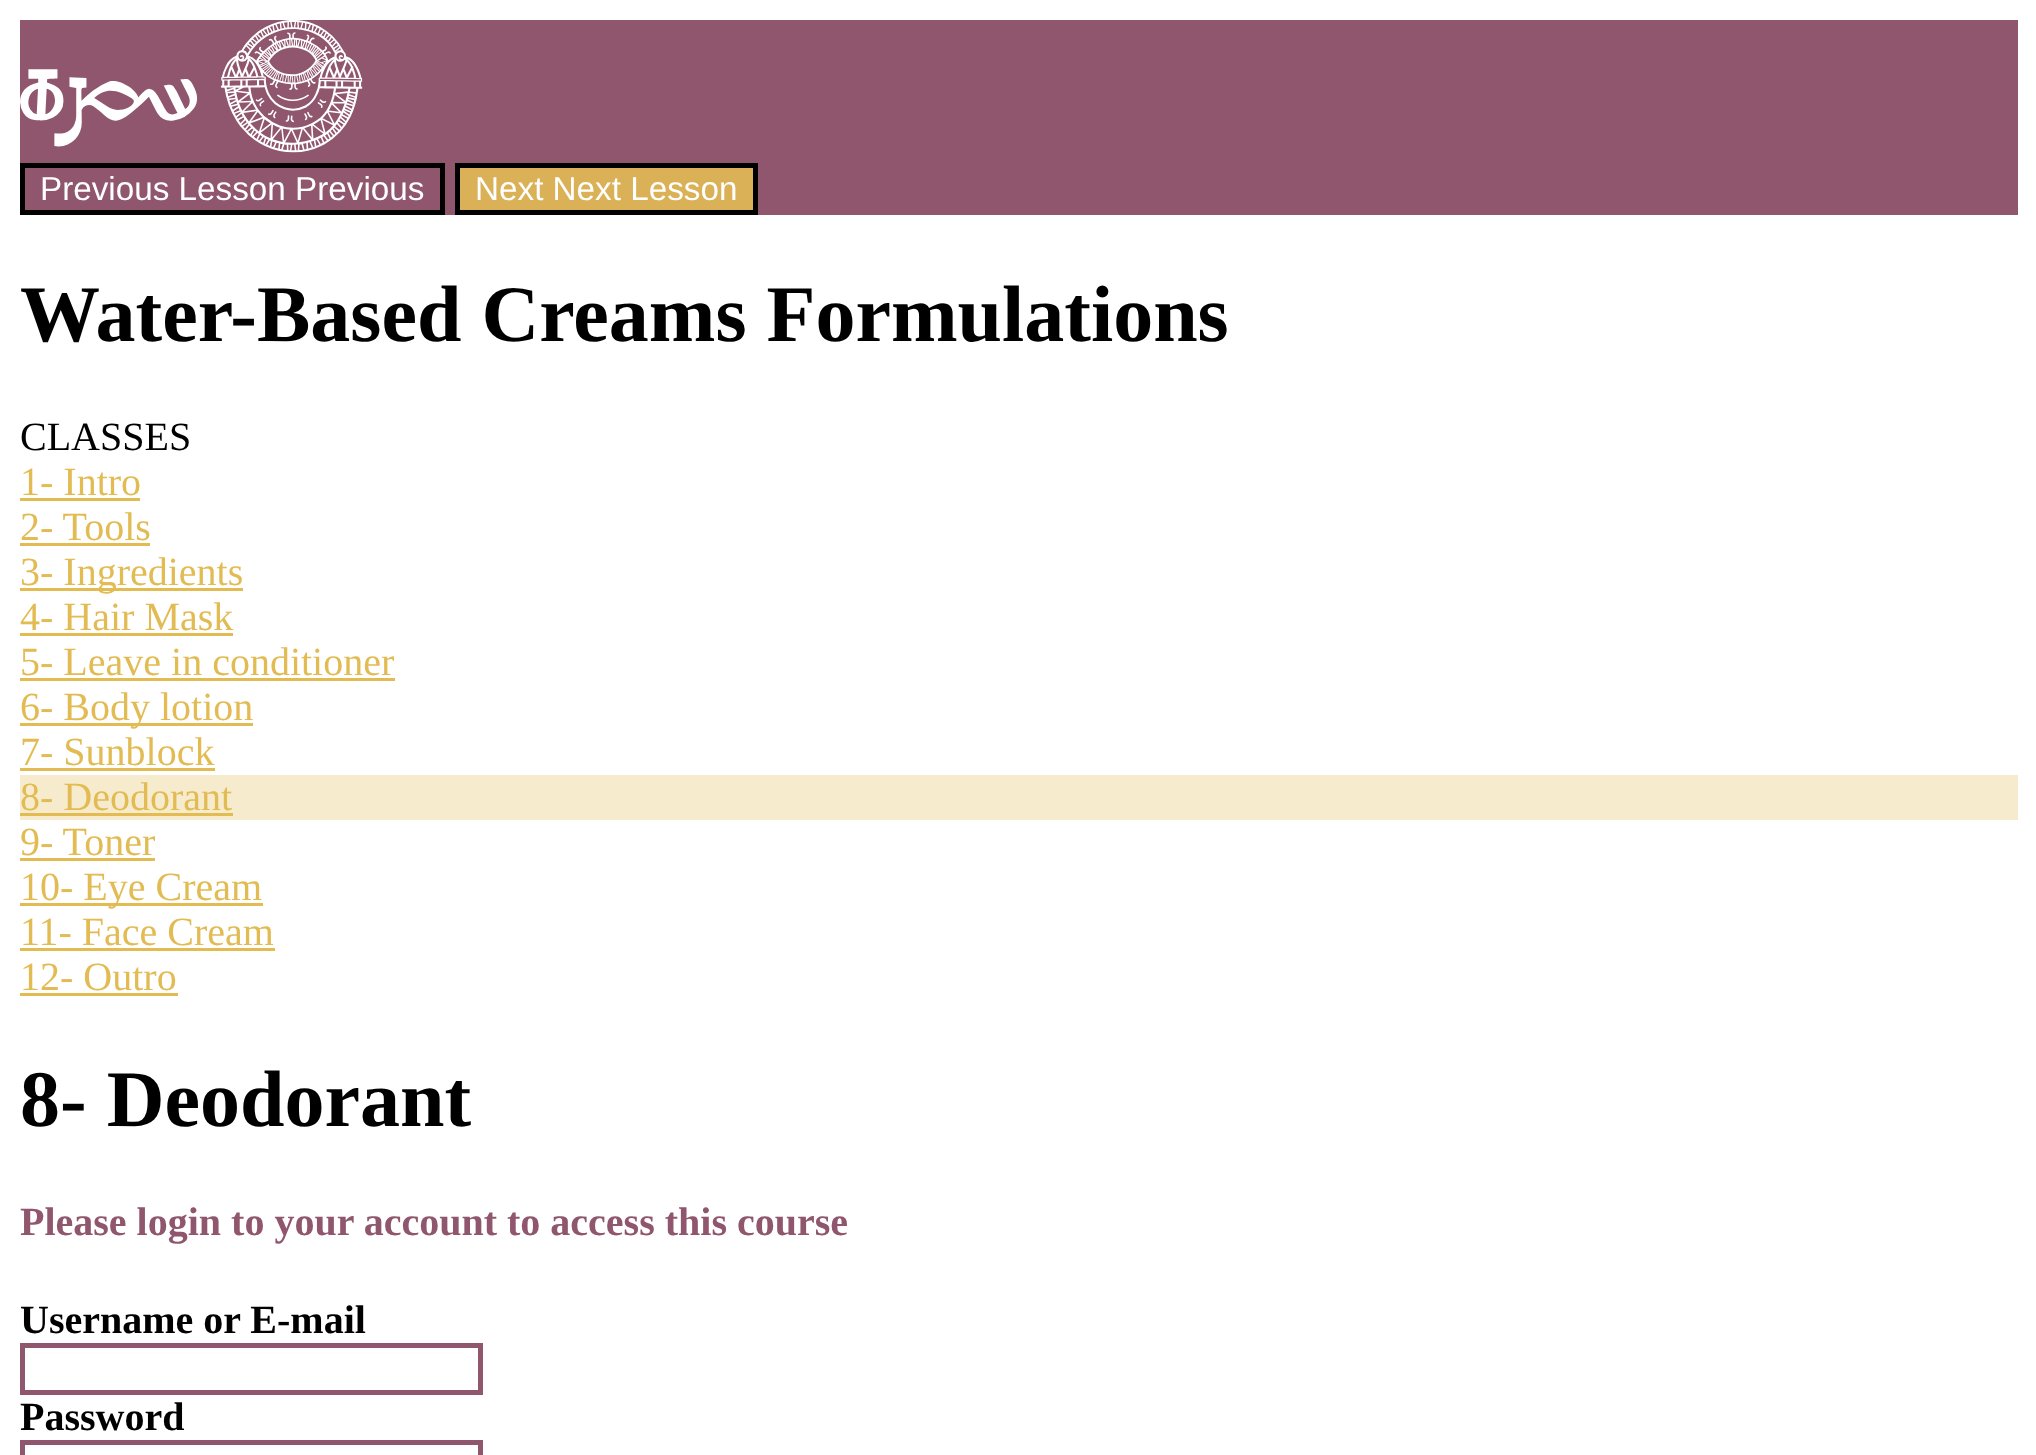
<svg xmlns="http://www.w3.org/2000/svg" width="2036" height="1455">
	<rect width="100%" height="100%" fill="#FFFFFF" />
	<rect x="20" y="20" width="1998" height="195" fill="#8F566D" />
	<image x="20" y="20" width="343" height="133" href="assets/img1.png" />
	<rect x="22.5" y="165.5" width="420" height="47" fill="none" stroke="#000000" stroke-width="5" />
	<text x="40" y="200" font-family="Liberation Sans" font-size="33.25" fill="#FFFFFF">Previous Lesson Previous</text>
	<rect x="457.5" y="165.5" width="298" height="47" fill="#DAB156" stroke="#000000" stroke-width="5" />
	<text x="475" y="200" font-family="Liberation Sans" font-size="33.25" fill="#FFFFFF">Next Next Lesson</text>
	<text x="20" y="341" font-family="Liberation Serif" font-size="80" font-weight="700" fill="#000000">Water-Based Creams Formulations</text>
	<text x="20" y="450" font-family="Liberation Serif" font-size="40" fill="#000000">CLASSES</text>
	<text x="20" y="495" font-family="Liberation Serif" font-size="40" fill="#E2BB53">1- Intro</text>
	<rect x="20" y="498" width="120" height="3" fill="#E2BB53" />
	<text x="20" y="540" font-family="Liberation Serif" font-size="40" fill="#E2BB53">2- Tools</text>
	<rect x="20" y="543" width="130" height="3" fill="#E2BB53" />
	<rect x="20" y="588" width="223" height="3" fill="#E2BB53" />
	<g font-family="Liberation Serif" font-size="40" fill="#E2BB53">
		<text x="20" y="585">3- Ingredients</text>
		<text x="20" y="630">4- Hair Mask</text>
	</g>
	<rect x="20" y="633" width="213" height="3" fill="#E2BB53" />
	<text x="20" y="675" font-family="Liberation Serif" font-size="40" fill="#E2BB53">5- Leave in conditioner</text>
	<rect x="20" y="678" width="375" height="3" fill="#E2BB53" />
	<rect x="20" y="723" width="233" height="3" fill="#E2BB53" />
	<g font-family="Liberation Serif" font-size="40" fill="#E2BB53">
		<text x="20" y="720">6- Body lotion</text>
		<text x="20" y="765">7- Sunblock</text>
	</g>
	<rect x="20" y="768" width="195" height="3" fill="#E2BB53" />
	<rect x="20" y="775" width="1998" height="45" fill="#F6EBCC" />
	<text x="20" y="810" font-family="Liberation Serif" font-size="40" fill="#E2BB53">8- Deodorant</text>
	<rect x="20" y="813" width="213" height="3" fill="#E2BB53" />
	<text x="20" y="855" font-family="Liberation Serif" font-size="40" fill="#E2BB53">9- Toner</text>
	<rect x="20" y="858" width="135" height="3" fill="#E2BB53" />
	<rect x="20" y="903" width="243" height="3" fill="#E2BB53" />
	<g font-family="Liberation Serif" font-size="40" fill="#E2BB53">
		<text x="20" y="900">10- Eye Cream</text>
		<text x="20" y="945">11- Face Cream</text>
	</g>
	<rect x="20" y="948" width="255" height="3" fill="#E2BB53" />
	<text x="20" y="990" font-family="Liberation Serif" font-size="40" fill="#E2BB53">12- Outro</text>
	<rect x="20" y="993" width="158" height="3" fill="#E2BB53" />
	<text x="20" y="1126" font-family="Liberation Serif" font-size="80" font-weight="700" fill="#000000">8- Deodorant</text>
	<text x="20" y="1235" font-family="Liberation Serif" font-size="40" font-weight="700" fill="#8F566D">Please login to your account to access this course</text>
	<text x="20" y="1333" font-family="Liberation Serif" font-size="40" font-weight="700" fill="#000000">Username or E-mail</text>
	<rect x="22.5" y="1345.5" width="458" height="47" fill="none" stroke="#8F566D" stroke-width="5" />
	<text x="20" y="1430" font-family="Liberation Serif" font-size="40" font-weight="700" fill="#000000">Password</text>
	<rect x="22.5" y="1442.5" width="458" height="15" fill="none" stroke="#8F566D" stroke-width="5" />
</svg>
